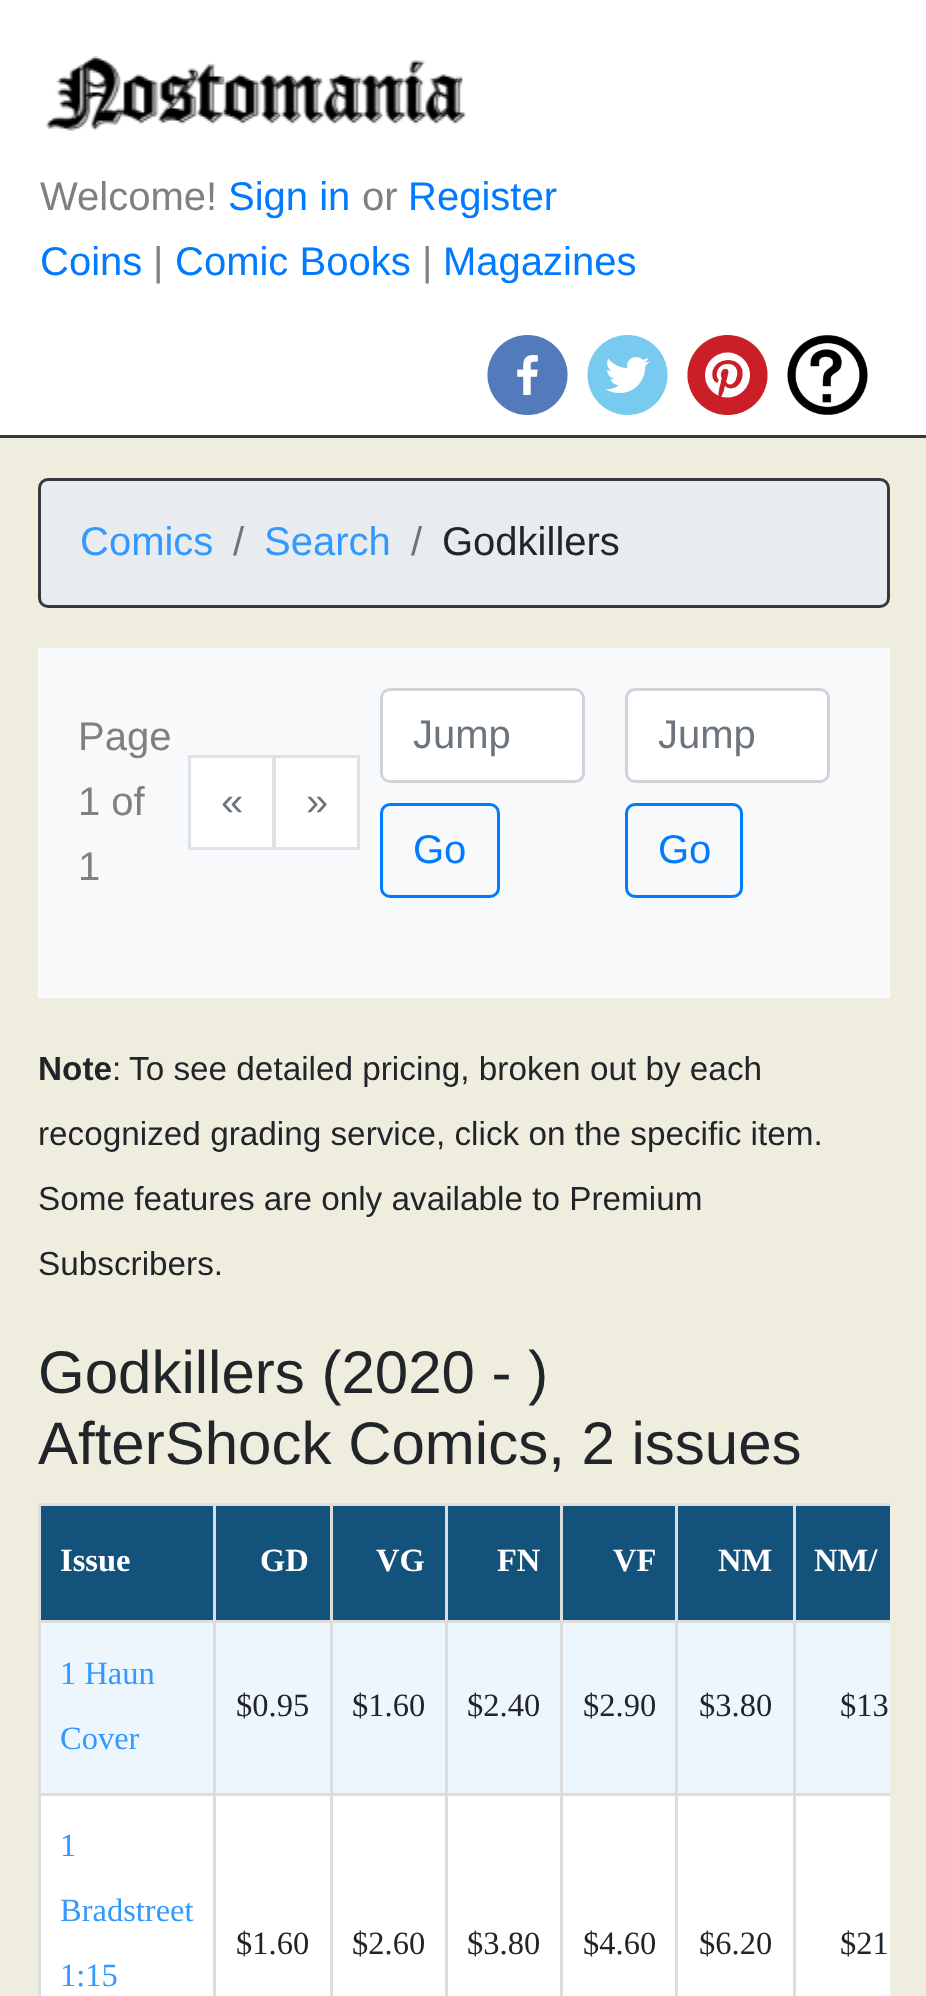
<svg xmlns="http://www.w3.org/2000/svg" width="926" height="1996">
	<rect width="100%" height="100%" fill="#EFEDDE" />
	<rect x="0" y="0" width="926" height="435" fill="#FFFFFF" />
	<rect x="0" y="435" width="926" height="3" fill="#343A40" />
	<image x="45" y="56" width="422" height="75" href="assets/img1.png" />
	<text x="40" y="210" font-family="Liberation Sans" font-size="40" fill="#808080">Welcome!</text>
	<text x="228" y="210" font-family="Liberation Sans" font-size="40" fill="#007BFF">Sign in</text>
	<text x="362" y="210" font-family="Liberation Sans" font-size="40" fill="#808080">or</text>
	<g font-family="Liberation Sans" font-size="40" fill="#007BFF">
		<text x="408" y="210">Register</text>
		<text x="40" y="275">Coins</text>
	</g>
	<text x="153" y="275" font-family="Liberation Sans" font-size="40" fill="#808080">|</text>
	<text x="175" y="275" font-family="Liberation Sans" font-size="40" fill="#007BFF">Comic Books</text>
	<text x="422" y="275" font-family="Liberation Sans" font-size="40" fill="#808080">|</text>
	<text x="443" y="275" font-family="Liberation Sans" font-size="40" fill="#007BFF">Magazines</text>
	<image x="487" y="335" width="81" height="80" href="assets/img2.png" />
	<image x="587" y="335" width="81" height="80" href="assets/img3.png" />
	<image x="687" y="335" width="81" height="80" href="assets/img4.png" />
	<image x="787" y="335" width="81" height="80" href="assets/img5.png" />
	<rect x="39.5" y="479.5" width="849" height="127" rx="8.5" fill="#E9ECEF" stroke="#343A40" stroke-width="3" />
	<text x="80" y="555" font-family="Liberation Sans" font-size="40" fill="#3399FF">Comics</text>
	<text x="233" y="555" font-family="Liberation Sans" font-size="40" fill="#6C757D">/</text>
	<text x="264" y="555" font-family="Liberation Sans" font-size="40" fill="#3399FF">Search</text>
	<text x="411" y="555" font-family="Liberation Sans" font-size="40" fill="#6C757D">/</text>
	<text x="442" y="555" font-family="Liberation Sans" font-size="40" fill="#212529">Godkillers</text>
	<rect x="38" y="648" width="852" height="350" fill="#F8F9FA" />
	<g font-family="Liberation Sans" font-size="40" fill="#808080">
		<text x="78" y="750">Page</text>
		<text x="78" y="815">1 of</text>
		<text x="78" y="880">1</text>
	</g>
	<rect x="189.5" y="756.5" width="84" height="92" fill="#FFFFFF" stroke="#DEE2E6" stroke-width="3" />
	<text x="221" y="815" font-family="Liberation Sans" font-size="40" fill="#6C757D">«</text>
	<rect x="274.5" y="756.5" width="84" height="92" fill="#FFFFFF" stroke="#DEE2E6" stroke-width="3" />
	<text x="306" y="815" font-family="Liberation Sans" font-size="40" fill="#6C757D">»</text>
	<rect x="381.5" y="689.5" width="202" height="92" rx="8.5" fill="#FFFFFF" stroke="#CED4DA" stroke-width="3" />
	<text x="413" y="748" font-family="Liberation Sans" font-size="40" fill="#6C757D">Jump</text>
	<rect x="381.5" y="804.5" width="117" height="92" rx="8.5" fill="none" stroke="#007BFF" stroke-width="3" />
	<text x="413" y="863" font-family="Liberation Sans" font-size="40" fill="#007BFF">Go</text>
	<rect x="626.5" y="689.5" width="202" height="92" rx="8.5" fill="#FFFFFF" stroke="#CED4DA" stroke-width="3" />
	<text x="658" y="748" font-family="Liberation Sans" font-size="40" fill="#6C757D">Jump</text>
	<rect x="626.5" y="804.5" width="115" height="92" rx="8.5" fill="none" stroke="#007BFF" stroke-width="3" />
	<text x="658" y="863" font-family="Liberation Sans" font-size="40" fill="#007BFF">Go</text>
	<text x="38" y="1080" font-family="Liberation Sans" font-size="33.3" font-weight="700" fill="#212529">Note</text>
	<g font-family="Liberation Sans" font-size="33.3" fill="#212529">
		<text x="112" y="1080">:</text>
		<text x="129" y="1080">To see detailed pricing, broken out by each</text>
		<text x="38" y="1145">recognized grading service, click on the specific item.</text>
		<text x="38" y="1210">Some features are only available to Premium</text>
		<text x="38" y="1275">Subscribers.</text>
	</g>
	<g font-family="Liberation Sans" font-size="60" fill="#212529">
		<text x="38" y="1393">Godkillers (2020 - )</text>
		<text x="38" y="1464">AfterShock Comics, 2 issues</text>
	</g>
	<rect x="41" y="1506" width="172" height="114" fill="#13527A" />
	<rect x="793" y="1503" width="97" height="3" fill="#DDDDDD" />
	<rect x="793" y="1620" width="97" height="3" fill="#DDDDDD" />
	<rect x="41" y="1623" width="849" height="170" fill="#EDF6FC" />
	<rect x="793" y="1793" width="97" height="3" fill="#DDDDDD" />
	<rect x="41" y="1796" width="849" height="200" fill="#FFFFFF" />
	<rect x="793" y="1793" width="3" height="203" fill="#DDDDDD" />
	<rect x="675" y="1793" width="120" height="3" fill="#DDDDDD" />
	<rect x="793" y="1620" width="3" height="175" fill="#DDDDDD" />
	<rect x="675" y="1620" width="120" height="3" fill="#DDDDDD" />
	<rect x="793" y="1503" width="3" height="120" fill="#DDDDDD" />
	<rect x="675" y="1503" width="120" height="3" fill="#DDDDDD" />
	<rect x="675" y="1793" width="3" height="203" fill="#DDDDDD" />
	<rect x="560" y="1793" width="118" height="3" fill="#DDDDDD" />
	<rect x="675" y="1620" width="3" height="175" fill="#DDDDDD" />
	<rect x="560" y="1620" width="118" height="3" fill="#DDDDDD" />
	<rect x="675" y="1503" width="3" height="120" fill="#DDDDDD" />
	<rect x="560" y="1503" width="118" height="3" fill="#DDDDDD" />
	<rect x="560" y="1793" width="3" height="203" fill="#DDDDDD" />
	<rect x="445" y="1793" width="118" height="3" fill="#DDDDDD" />
	<rect x="560" y="1620" width="3" height="175" fill="#DDDDDD" />
	<rect x="445" y="1620" width="118" height="3" fill="#DDDDDD" />
	<rect x="560" y="1503" width="3" height="120" fill="#DDDDDD" />
	<rect x="445" y="1503" width="118" height="3" fill="#DDDDDD" />
	<rect x="445" y="1793" width="3" height="203" fill="#DDDDDD" />
	<rect x="330" y="1793" width="118" height="3" fill="#DDDDDD" />
	<rect x="445" y="1620" width="3" height="175" fill="#DDDDDD" />
	<rect x="330" y="1620" width="118" height="3" fill="#DDDDDD" />
	<rect x="445" y="1503" width="3" height="120" fill="#DDDDDD" />
	<rect x="330" y="1503" width="118" height="3" fill="#DDDDDD" />
	<rect x="330" y="1793" width="3" height="203" fill="#DDDDDD" />
	<rect x="213" y="1793" width="120" height="3" fill="#DDDDDD" />
	<rect x="330" y="1620" width="3" height="175" fill="#DDDDDD" />
	<rect x="213" y="1620" width="120" height="3" fill="#DDDDDD" />
	<rect x="330" y="1503" width="3" height="120" fill="#DDDDDD" />
	<rect x="213" y="1503" width="120" height="3" fill="#DDDDDD" />
	<rect x="213" y="1793" width="3" height="203" fill="#DDDDDD" />
	<rect x="38" y="1793" width="177" height="3" fill="#DDDDDD" />
	<rect x="213" y="1620" width="3" height="175" fill="#DDDDDD" />
	<rect x="38" y="1620" width="177" height="3" fill="#DDDDDD" />
	<rect x="213" y="1503" width="3" height="120" fill="#DDDDDD" />
	<rect x="38" y="1503" width="177" height="3" fill="#DDDDDD" />
	<rect x="38" y="1793" width="3" height="203" fill="#DDDDDD" />
	<rect x="38" y="1620" width="3" height="175" fill="#DDDDDD" />
	<rect x="38" y="1503" width="3" height="120" fill="#DDDDDD" />
	<text x="60" y="1571" font-family="Liberation Serif" font-size="32.5" font-weight="700" fill="#FFFFFF">Issue</text>
	<rect x="216" y="1506" width="114" height="114" fill="#13527A" />
	<text x="260" y="1571" font-family="Liberation Serif" font-size="32.5" font-weight="700" fill="#FFFFFF">GD</text>
	<rect x="333" y="1506" width="112" height="114" fill="#13527A" />
	<text x="376" y="1571" font-family="Liberation Serif" font-size="32.5" font-weight="700" fill="#FFFFFF">VG</text>
	<rect x="448" y="1506" width="112" height="114" fill="#13527A" />
	<text x="497" y="1571" font-family="Liberation Serif" font-size="32.5" font-weight="700" fill="#FFFFFF">FN</text>
	<rect x="563" y="1506" width="112" height="114" fill="#13527A" />
	<text x="613" y="1571" font-family="Liberation Serif" font-size="32.5" font-weight="700" fill="#FFFFFF">VF</text>
	<rect x="678" y="1506" width="115" height="114" fill="#13527A" />
	<text x="718" y="1571" font-family="Liberation Serif" font-size="32.5" font-weight="700" fill="#FFFFFF">NM</text>
	<rect x="796" y="1506" width="94" height="114" fill="#13527A" />
	<text x="814" y="1571" font-family="Liberation Serif" font-size="32.5" font-weight="700" fill="#FFFFFF">NM/</text>
	<g font-family="Liberation Serif" font-size="32.5" fill="#3399FF">
		<text x="60" y="1684">1 Haun</text>
		<text x="60" y="1749">Cover</text>
	</g>
	<g font-family="Liberation Serif" font-size="32.5" fill="#212529">
		<text x="236" y="1716">$0.95</text>
		<text x="352" y="1716">$1.60</text>
		<text x="467" y="1716">$2.40</text>
		<text x="583" y="1716">$2.90</text>
		<text x="699" y="1716">$3.80</text>
		<text x="840" y="1716">$13</text>
	</g>
	<g font-family="Liberation Serif" font-size="32.5" fill="#3399FF">
		<text x="60" y="1856">1</text>
		<text x="60" y="1921">Bradstreet</text>
		<text x="60" y="1986">1:15</text>
	</g>
	<g font-family="Liberation Serif" font-size="32.5" fill="#212529">
		<text x="236" y="1954">$1.60</text>
		<text x="352" y="1954">$2.60</text>
		<text x="467" y="1954">$3.80</text>
		<text x="583" y="1954">$4.60</text>
		<text x="699" y="1954">$6.20</text>
		<text x="840" y="1954">$21</text>
	</g>
</svg>
